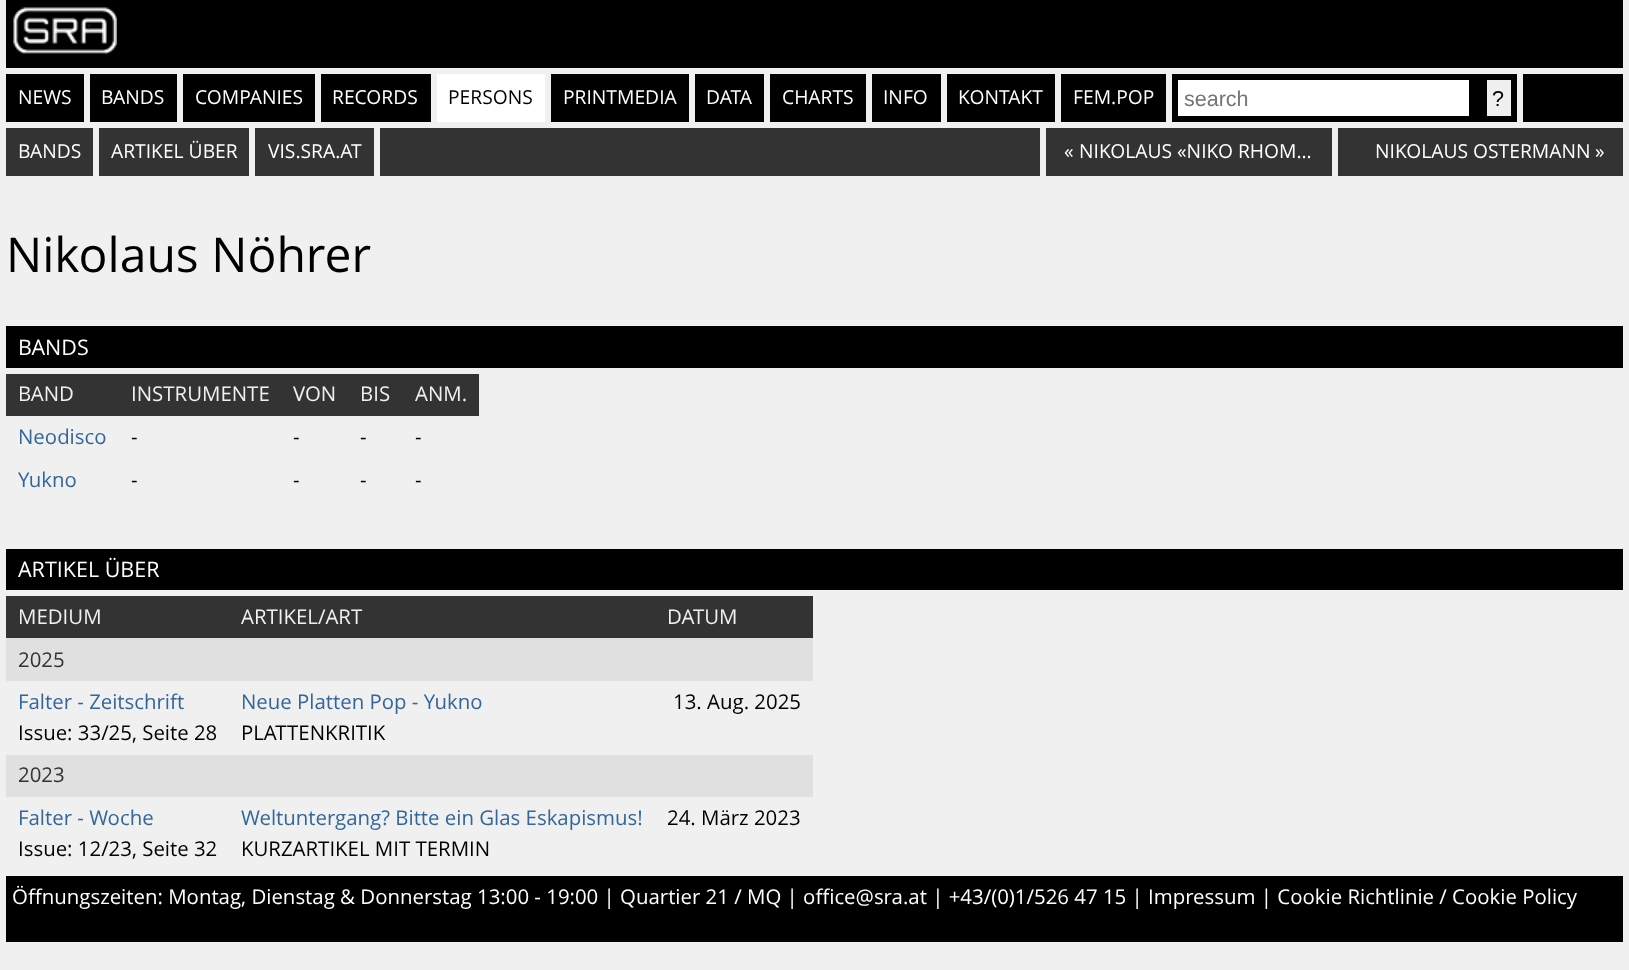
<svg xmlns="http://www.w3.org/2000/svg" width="1629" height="970">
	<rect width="100%" height="100%" fill="#F0F0F0" />
	<rect x="6" y="0" width="1617" height="68" fill="#000000" />
	<image x="12" y="7" width="105" height="47" href="assets/img1.png" />
	<rect x="6" y="74" width="78" height="48" fill="#000000" />
	<text x="18" y="104" font-family="Open Sans" font-size="19.25" fill="#FFFFFF">NEWS</text>
	<rect x="90" y="74" width="87" height="48" fill="#000000" />
	<text x="101" y="104" font-family="Open Sans" font-size="19.25" fill="#FFFFFF">BANDS</text>
	<rect x="183" y="74" width="132" height="48" fill="#000000" />
	<text x="195" y="104" font-family="Open Sans" font-size="19.25" fill="#FFFFFF">COMPANIES</text>
	<rect x="321" y="74" width="110" height="48" fill="#000000" />
	<text x="332" y="104" font-family="Open Sans" font-size="19.25" fill="#FFFFFF">RECORDS</text>
	<rect x="437" y="74" width="108" height="48" fill="#FFFFFF" />
	<text x="448" y="104" font-family="Open Sans" font-size="19.25" fill="#000000">PERSONS</text>
	<rect x="551" y="74" width="138" height="48" fill="#000000" />
	<text x="563" y="104" font-family="Open Sans" font-size="19.25" fill="#FFFFFF">PRINTMEDIA</text>
	<rect x="695" y="74" width="69" height="48" fill="#000000" />
	<text x="706" y="104" font-family="Open Sans" font-size="19.25" fill="#FFFFFF">DATA</text>
	<rect x="770" y="74" width="96" height="48" fill="#000000" />
	<text x="782" y="104" font-family="Open Sans" font-size="19.25" fill="#FFFFFF">CHARTS</text>
	<rect x="872" y="74" width="69" height="48" fill="#000000" />
	<text x="883" y="104" font-family="Open Sans" font-size="19.25" fill="#FFFFFF">INFO</text>
	<rect x="947" y="74" width="108" height="48" fill="#000000" />
	<text x="958" y="104" font-family="Open Sans" font-size="19.25" fill="#FFFFFF">KONTAKT</text>
	<rect x="1061" y="74" width="105" height="48" fill="#000000" />
	<text x="1073" y="104" font-family="Open Sans" font-size="19.25" fill="#FFFFFF">FEM.POP</text>
	<rect x="1172" y="74" width="345" height="48" fill="#000000" />
	<rect x="1178" y="80" width="291" height="36" fill="#FFFFFF" />
	<text x="1184" y="106" font-family="Liberation Sans" font-size="21.5" fill="#757575">search</text>
	<rect x="1487" y="80" width="24" height="36" fill="#EFEFEF" />
	<text x="1492" y="106" font-family="Liberation Sans" font-size="21.5" fill="#000000">?</text>
	<rect x="1523" y="74" width="100" height="48" fill="#000000" />
	<rect x="6" y="128" width="87" height="48" fill="#333333" />
	<text x="18" y="158" font-family="Open Sans" font-size="19.25" fill="#FFFFFF">BANDS</text>
	<rect x="99" y="128" width="150" height="48" fill="#333333" />
	<text x="111" y="158" font-family="Open Sans" font-size="19.25" fill="#FFFFFF">ARTIKEL ÜBER</text>
	<rect x="255" y="128" width="119" height="48" fill="#333333" />
	<text x="268" y="158" font-family="Open Sans" font-size="19.25" fill="#FFFFFF">VIS.SRA.AT</text>
	<rect x="380" y="128" width="660" height="48" fill="#333333" />
	<rect x="1046" y="128" width="286" height="48" fill="#333333" />
	<g font-family="Open Sans" font-size="19.25" fill="#FFFFFF">
		<text x="1064" y="158">«</text>
		<text x="1079" y="158">NIKOLAUS «NIKO RHOM…</text>
	</g>
	<rect x="1338" y="128" width="285" height="48" fill="#333333" />
	<g font-family="Open Sans" font-size="19.25" fill="#FFFFFF">
		<text x="1375" y="158">NIKOLAUS OSTERMANN</text>
		<text x="1595" y="158">»</text>
	</g>
	<text x="6" y="272" font-family="Open Sans" font-size="48" fill="#000000">Nikolaus Nöhrer</text>
	<rect x="6" y="326" width="1617" height="42" fill="#000000" />
	<text x="18" y="355" font-family="Open Sans" font-size="21.5" fill="#FFFFFF">BANDS</text>
	<rect x="6" y="374" width="473" height="42" fill="#333333" />
	<g font-family="Open Sans" font-size="20.4" fill="#F0F0F0">
		<text x="18" y="401">BAND</text>
		<text x="131" y="401">INSTRUMENTE</text>
		<text x="293" y="401">VON</text>
		<text x="360" y="401">BIS</text>
		<text x="415" y="401">ANM.</text>
	</g>
	<text x="18" y="444" font-family="Open Sans" font-size="20.4" fill="#336699">Neodisco</text>
	<g font-family="Open Sans" font-size="20.4" fill="#000000">
		<text x="131" y="444">-</text>
		<text x="293" y="444">-</text>
		<text x="360" y="444">-</text>
		<text x="415" y="444">-</text>
	</g>
	<text x="18" y="487" font-family="Open Sans" font-size="20.4" fill="#336699">Yukno</text>
	<g font-family="Open Sans" font-size="20.4" fill="#000000">
		<text x="131" y="487">-</text>
		<text x="293" y="487">-</text>
		<text x="360" y="487">-</text>
		<text x="415" y="487">-</text>
	</g>
	<rect x="6" y="549" width="1617" height="41" fill="#000000" />
	<text x="18" y="577" font-family="Open Sans" font-size="21.5" fill="#FFFFFF">ARTIKEL ÜBER</text>
	<rect x="6" y="596" width="807" height="42" fill="#333333" />
	<g font-family="Open Sans" font-size="20.4" fill="#F0F0F0">
		<text x="18" y="624">MEDIUM</text>
		<text x="241" y="624">ARTIKEL/ART</text>
		<text x="667" y="624">DATUM</text>
	</g>
	<rect x="6" y="638" width="807" height="43" fill="#E0E0E0" />
	<text x="18" y="667" font-family="Open Sans" font-size="20.4" fill="#333333">2025</text>
	<text x="18" y="709" font-family="Open Sans" font-size="20.4" fill="#336699">Falter - Zeitschrift</text>
	<text x="18" y="740" font-family="Open Sans" font-size="20.4" fill="#000000">Issue: 33/25, Seite 28</text>
	<text x="241" y="709" font-family="Open Sans" font-size="20.4" fill="#336699">Neue Platten Pop - Yukno</text>
	<g font-family="Open Sans" font-size="20.4" fill="#000000">
		<text x="241" y="740">PLATTENKRITIK</text>
		<text x="673" y="709">13. Aug. 2025</text>
	</g>
	<rect x="6" y="755" width="807" height="42" fill="#E0E0E0" />
	<text x="18" y="782" font-family="Open Sans" font-size="20.4" fill="#333333">2023</text>
	<text x="18" y="825" font-family="Open Sans" font-size="20.4" fill="#336699">Falter - Woche</text>
	<text x="18" y="856" font-family="Open Sans" font-size="20.4" fill="#000000">Issue: 12/23, Seite 32</text>
	<text x="241" y="825" font-family="Open Sans" font-size="20.4" fill="#336699">Weltuntergang? Bitte ein Glas Eskapismus!</text>
	<g font-family="Open Sans" font-size="20.4" fill="#000000">
		<text x="241" y="856">KURZARTIKEL MIT TERMIN</text>
		<text x="667" y="825">24. März 2023</text>
	</g>
	<rect x="6" y="876" width="1617" height="66" fill="#000000" />
	<text x="12" y="904" font-family="Open Sans" font-size="20.4" fill="#FFFFFF">Öffnungszeiten: Montag, Dienstag &amp; Donnerstag 13:00 - 19:00 | Quartier 21 / MQ | office@sra.at | +43/(0)1/526 47 15 | Impressum | Cookie Richtlinie / Cookie Policy</text>
</svg>
